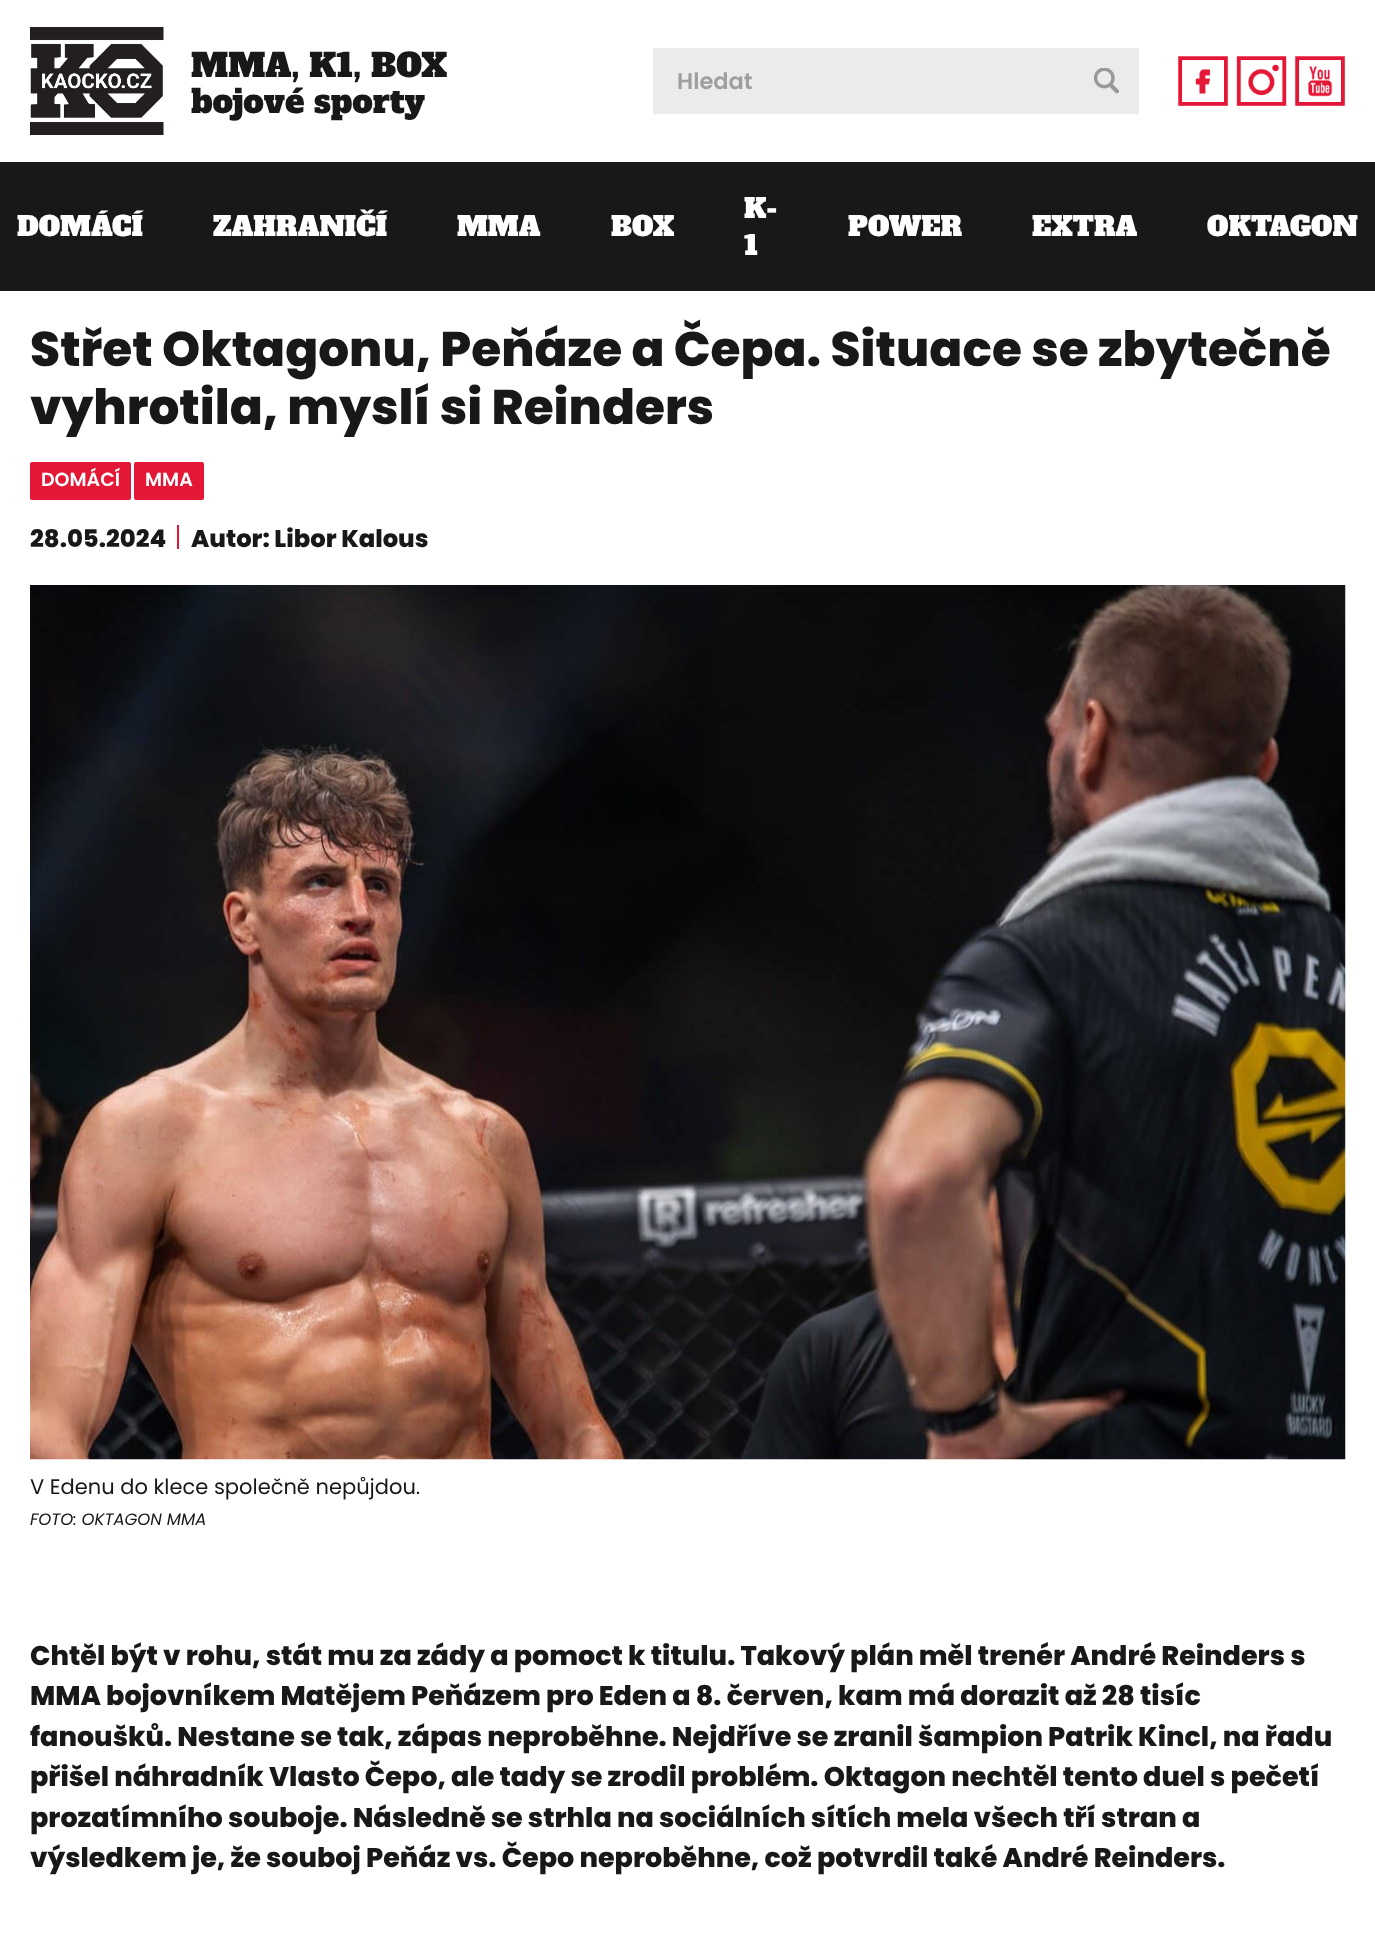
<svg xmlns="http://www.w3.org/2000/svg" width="1375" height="1960">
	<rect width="100%" height="100%" fill="#FFFFFF" />
	<image x="30" y="27" width="134" height="108" href="assets/img1.png" />
	<g font-family="Alfa Slab One" font-size="32.5" fill="#191817">
		<text x="191" y="77">MMA, K1, BOX</text>
		<text x="191" y="113">bojové sporty</text>
	</g>
	<rect x="653" y="48" width="486" height="66" fill="#EBEBEB" />
	<text x="677" y="89" font-family="Poppins" font-size="22.5" font-weight="600" fill="#9E9E9E">Hledat</text>
	<image x="1094" y="68" width="25" height="26" href="assets/img2.png" />
	<image x="1178" y="56" width="50" height="50" href="assets/img3.png" />
	<image x="1236" y="56" width="51" height="50" href="assets/img4.png" />
	<image x="1295" y="56" width="50" height="50" href="assets/img5.png" />
	<rect x="0" y="162" width="1375" height="129" fill="#191817" />
	<g font-family="Alfa Slab One" font-size="27" fill="#FFFFFF">
		<text x="17" y="236">DOMÁCÍ</text>
		<text x="213" y="236">ZAHRANIČÍ</text>
		<text x="457" y="236">MMA</text>
		<text x="611" y="236">BOX</text>
		<text x="744" y="218">K-</text>
		<text x="744" y="255">1</text>
		<text x="848" y="236">POWER</text>
		<text x="1032" y="236">EXTRA</text>
		<text x="1207" y="236">OKTAGON</text>
	</g>
	<g font-family="Poppins" font-size="48.6" font-weight="800" fill="#191817">
		<text x="30" y="366">Střet Oktagonu, Peňáze a Čepa. Situace se zbytečně</text>
		<text x="30" y="424">vyhrotila, myslí si Reinders</text>
	</g>
	<rect x="30" y="462" width="101" height="38" rx="2" fill="#E51737" />
	<text x="41" y="486" font-family="Poppins" font-size="19" font-weight="600" fill="#FFFFFF">DOMÁCÍ</text>
	<rect x="134" y="462" width="70" height="38" rx="2" fill="#E51737" />
	<text x="145" y="486" font-family="Poppins" font-size="19" font-weight="600" fill="#FFFFFF">MMA</text>
	<text x="30" y="547" font-family="Poppins" font-size="24.25" font-weight="800" fill="#191817">28.05.2024</text>
	<rect x="177" y="525" width="2" height="24" fill="#E51737" />
	<text x="191" y="547" font-family="Poppins" font-size="24.25" font-weight="800" fill="#191817">Autor: Libor Kalous</text>
	<image x="30" y="585" width="1316" height="875" href="assets/img6.png" />
	<text x="30" y="1494" font-family="Poppins" font-size="21" fill="#191817">V Edenu do klece společně nepůjdou.</text>
	<text x="30" y="1525" font-family="Poppins" font-size="16.5" font-style="italic" fill="#191817">FOTO: OKTAGON MMA</text>
	<g font-family="Poppins" font-size="27" font-weight="800" fill="#191817">
		<text x="30" y="1665">Chtěl být v rohu, stát mu za zády a pomoct k titulu. Takový plán měl trenér André Reinders s</text>
		<text x="30" y="1705">MMA bojovníkem Matějem Peňázem pro Eden a 8. červen, kam má dorazit až 28 tisíc</text>
		<text x="30" y="1746">fanoušků. Nestane se tak, zápas neproběhne. Nejdříve se zranil šampion Patrik Kincl, na řadu</text>
		<text x="30" y="1786">přišel náhradník Vlasto Čepo, ale tady se zrodil problém. Oktagon nechtěl tento duel s pečetí</text>
		<text x="30" y="1827">prozatímního souboje. Následně se strhla na sociálních sítích mela všech tří stran a</text>
		<text x="30" y="1867">výsledkem je, že souboj Peňáz vs. Čepo neproběhne, což potvrdil také André Reinders.</text>
	</g>
</svg>
